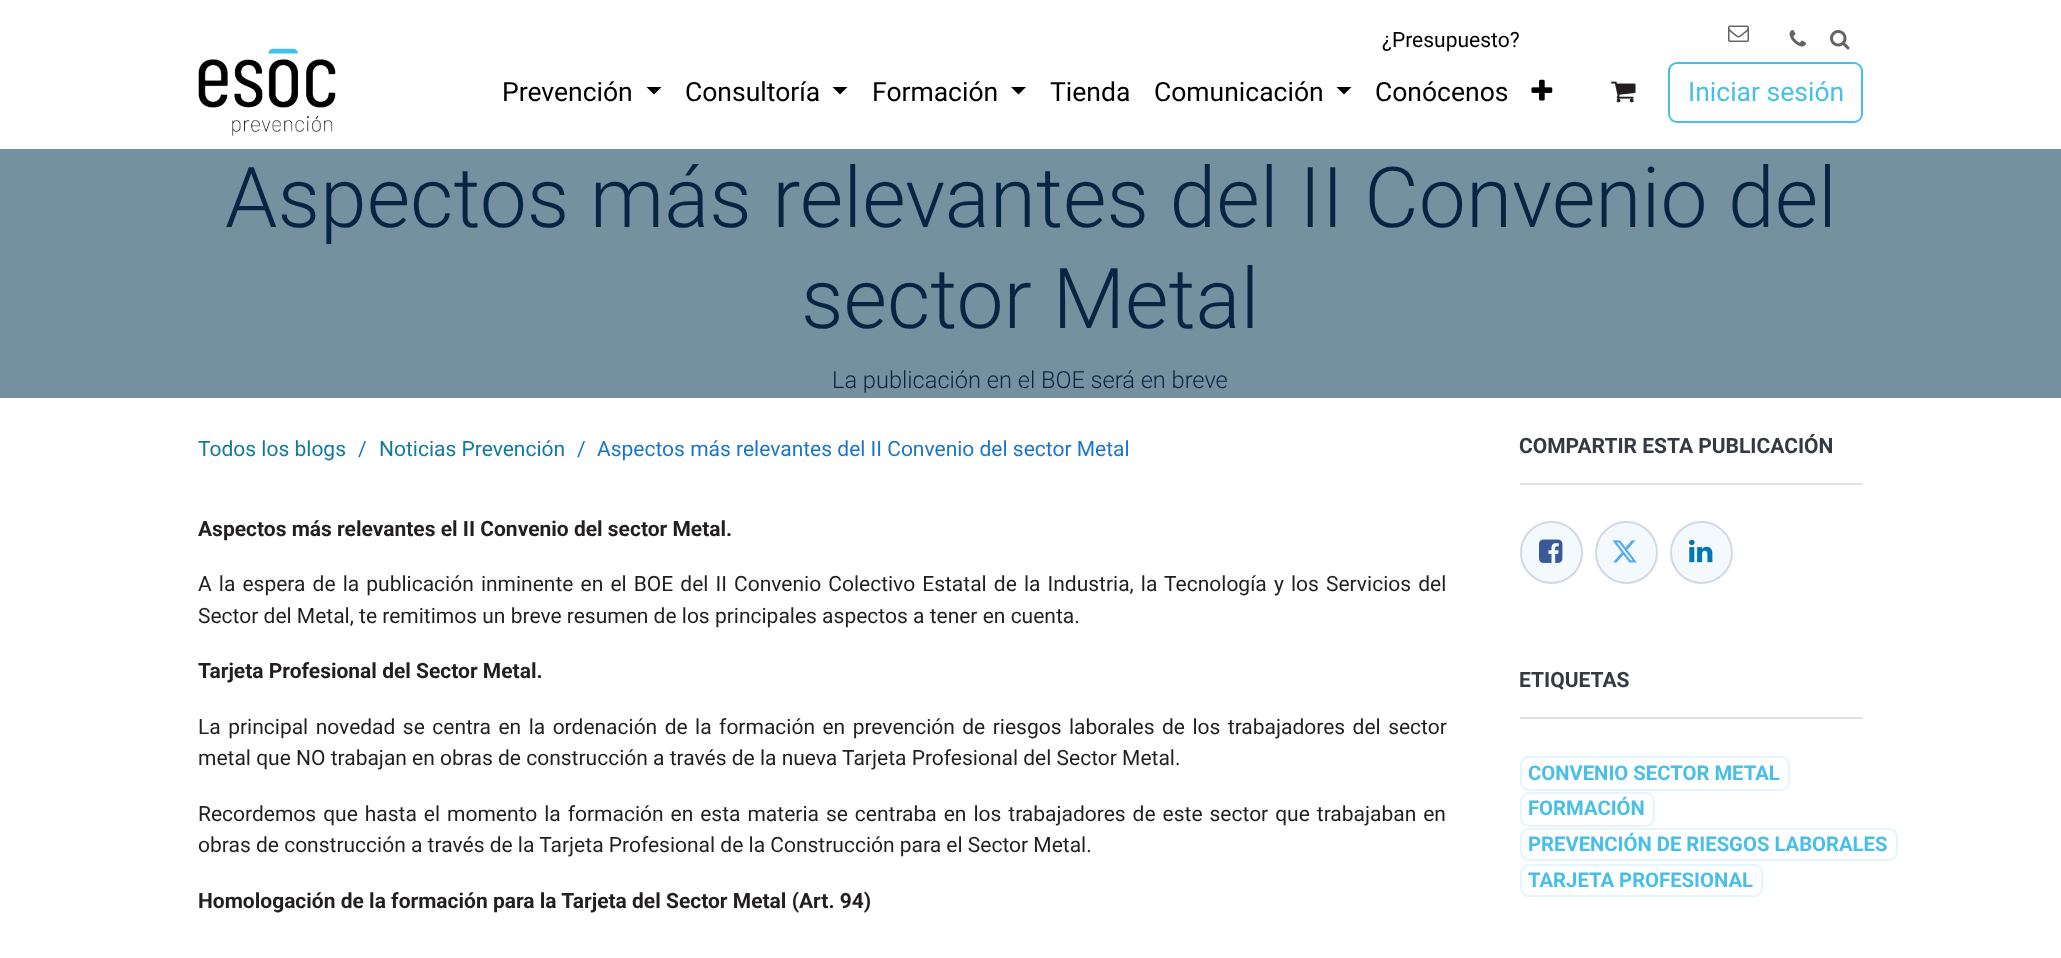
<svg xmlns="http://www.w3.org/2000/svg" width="2061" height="958">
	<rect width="100%" height="100%" fill="#FFFFFF" />
	<text x="1382" y="47" font-family="Roboto" font-size="21" fill="#000000">¿Presupuesto?</text>
	<image x="1728" y="25" width="21" height="17" href="assets/img1.png" />
	<image x="1789" y="30" width="17" height="17" href="assets/img2.png" />
	<image x="1830" y="30" width="20" height="20" href="assets/img3.png" />
	<image x="198" y="48" width="138" height="88" href="assets/img4.png" />
	<text x="502" y="101" font-family="Roboto" font-size="26.5" fill="#000000">Prevención</text>
	<path d="M646.5 87H661.5L654 94.5Z" fill="#000000" />
	<text x="685" y="101" font-family="Roboto" font-size="26.5" fill="#000000">Consultoría</text>
	<path d="M832.5 87H847.5L840 94.5Z" fill="#000000" />
	<text x="872" y="101" font-family="Roboto" font-size="26.5" fill="#000000">Formación</text>
	<path d="M1011 87H1026L1018.5 94.5Z" fill="#000000" />
	<g font-family="Roboto" font-size="26.5" fill="#000000">
		<text x="1050" y="101">Tienda</text>
		<text x="1154" y="101">Comunicación</text>
	</g>
	<path d="M1336.5 87H1351.5L1344 94.5Z" fill="#000000" />
	<text x="1375" y="101" font-family="Roboto" font-size="26.5" fill="#000000">Conócenos</text>
	<image x="1531" y="79" width="22" height="22" href="assets/img5.png" />
	<image x="1611" y="81" width="25" height="22" href="assets/img6.png" />
	<rect x="1669" y="63" width="193" height="59" rx="8" fill="none" stroke="#48BFE9" stroke-width="2" />
	<text x="1688" y="101" font-family="Roboto" font-size="26.5" fill="#48BFE9">Iniciar sesión</text>
	<rect x="0" y="149" width="2061" height="249" fill="#75919F" />
	<g font-family="Roboto" font-size="84" font-weight="300" fill="#072543">
		<text x="225" y="227">Aspectos más relevantes del II Convenio del</text>
		<text x="801" y="328">sector Metal</text>
	</g>
	<text x="832" y="388" font-family="Roboto" font-size="23.6" font-weight="300" fill="#072543">La publicación en el BOE será en breve</text>
	<text x="198" y="456" font-family="Roboto" font-size="21" fill="#137A9E">Todos los blogs</text>
	<text x="358" y="456" font-family="Roboto" font-size="21" fill="#1C75CD">/</text>
	<text x="379" y="456" font-family="Roboto" font-size="21" fill="#137A9E">Noticias Prevención</text>
	<g font-family="Roboto" font-size="21" fill="#1C75CD">
		<text x="577" y="456">/</text>
		<text x="597" y="456">Aspectos más relevantes del II Convenio del sector Metal</text>
	</g>
	<text x="198" y="536" font-family="Roboto" font-size="21" font-weight="700" fill="#231F20">Aspectos más relevantes el II Convenio del sector Metal.</text>
	<g font-family="Roboto" font-size="21" fill="#231F20">
		<text x="198" y="591" word-spacing="1.9">A la espera de la publicación inminente en el BOE del II Convenio Colectivo Estatal de la Industria, la Tecnología y los Servicios del</text>
		<text x="198" y="623">Sector del Metal, te remitimos un breve resumen de los principales aspectos a tener en cuenta.</text>
	</g>
	<text x="198" y="678" font-family="Roboto" font-size="21" font-weight="700" fill="#231F20">Tarjeta Profesional del Sector Metal.</text>
	<g font-family="Roboto" font-size="21" fill="#231F20">
		<text x="198" y="734" word-spacing="2.25">La principal novedad se centra en la ordenación de la formación en prevención de riesgos laborales de los trabajadores del sector</text>
		<text x="198" y="765">metal que NO trabajan en obras de construcción a través de la nueva Tarjeta Profesional del Sector Metal.</text>
		<text x="198" y="821" word-spacing="1.75">Recordemos que hasta el momento la formación en esta materia se centraba en los trabajadores de este sector que trabajaban en</text>
		<text x="198" y="852">obras de construcción a través de la Tarjeta Profesional de la Construcción para el Sector Metal.</text>
	</g>
	<text x="198" y="908" font-family="Roboto" font-size="21" font-weight="700" fill="#231F20">Homologación de la formación para la Tarjeta del Sector Metal (Art. 94)</text>
	<rect x="1520" y="483" width="343" height="2" fill="#E1E1E2" />
	<text x="1519" y="453" font-family="Roboto" font-size="21" font-weight="700" fill="#343A40">COMPARTIR ESTA PUBLICACIÓN</text>
	<circle cx="1551.5" cy="552.5" r="31.5" fill="#F4F9FE" />
	<circle cx="1551.5" cy="552.5" r="30.5" fill="none" stroke="#072543" stroke-opacity="0.15" stroke-width="2" />
	<image x="1539" y="539" width="24" height="24" href="assets/img7.png" />
	<circle cx="1626.5" cy="552.5" r="31.5" fill="#F4F9FE" />
	<circle cx="1626.5" cy="552.5" r="30.5" fill="none" stroke="#072543" stroke-opacity="0.15" stroke-width="2" />
	<image x="1612" y="540" width="25" height="23" href="assets/img8.png" />
	<circle cx="1701.5" cy="552.5" r="31.5" fill="#F4F9FE" />
	<circle cx="1701.5" cy="552.5" r="30.5" fill="none" stroke="#072543" stroke-opacity="0.15" stroke-width="2" />
	<image x="1689" y="539" width="24" height="24" href="assets/img9.png" />
	<rect x="1520" y="717" width="343" height="2" fill="#E1E1E2" />
	<text x="1519" y="687" font-family="Roboto" font-size="21" font-weight="700" fill="#343A40">ETIQUETAS</text>
	<rect x="1521" y="757" width="268" height="33" rx="8" fill="none" stroke="#E4F5FC" stroke-width="2" />
	<text x="1528" y="780" font-family="Roboto" font-size="20.25" font-weight="700" fill="#48BFE9">CONVENIO SECTOR METAL</text>
	<rect x="1521" y="793" width="133" height="33" rx="8" fill="none" stroke="#E4F5FC" stroke-width="2" />
	<text x="1528" y="815" font-family="Roboto" font-size="20.25" font-weight="700" fill="#48BFE9">FORMACIÓN</text>
	<rect x="1521" y="829" width="376" height="31" rx="8" fill="none" stroke="#E4F5FC" stroke-width="2" />
	<text x="1528" y="851" font-family="Roboto" font-size="20.25" font-weight="700" fill="#48BFE9">PREVENCIÓN DE RIESGOS LABORALES</text>
	<rect x="1521" y="865" width="241" height="31" rx="8" fill="none" stroke="#E4F5FC" stroke-width="2" />
	<text x="1528" y="887" font-family="Roboto" font-size="20.25" font-weight="700" fill="#48BFE9">TARJETA PROFESIONAL</text>
</svg>
